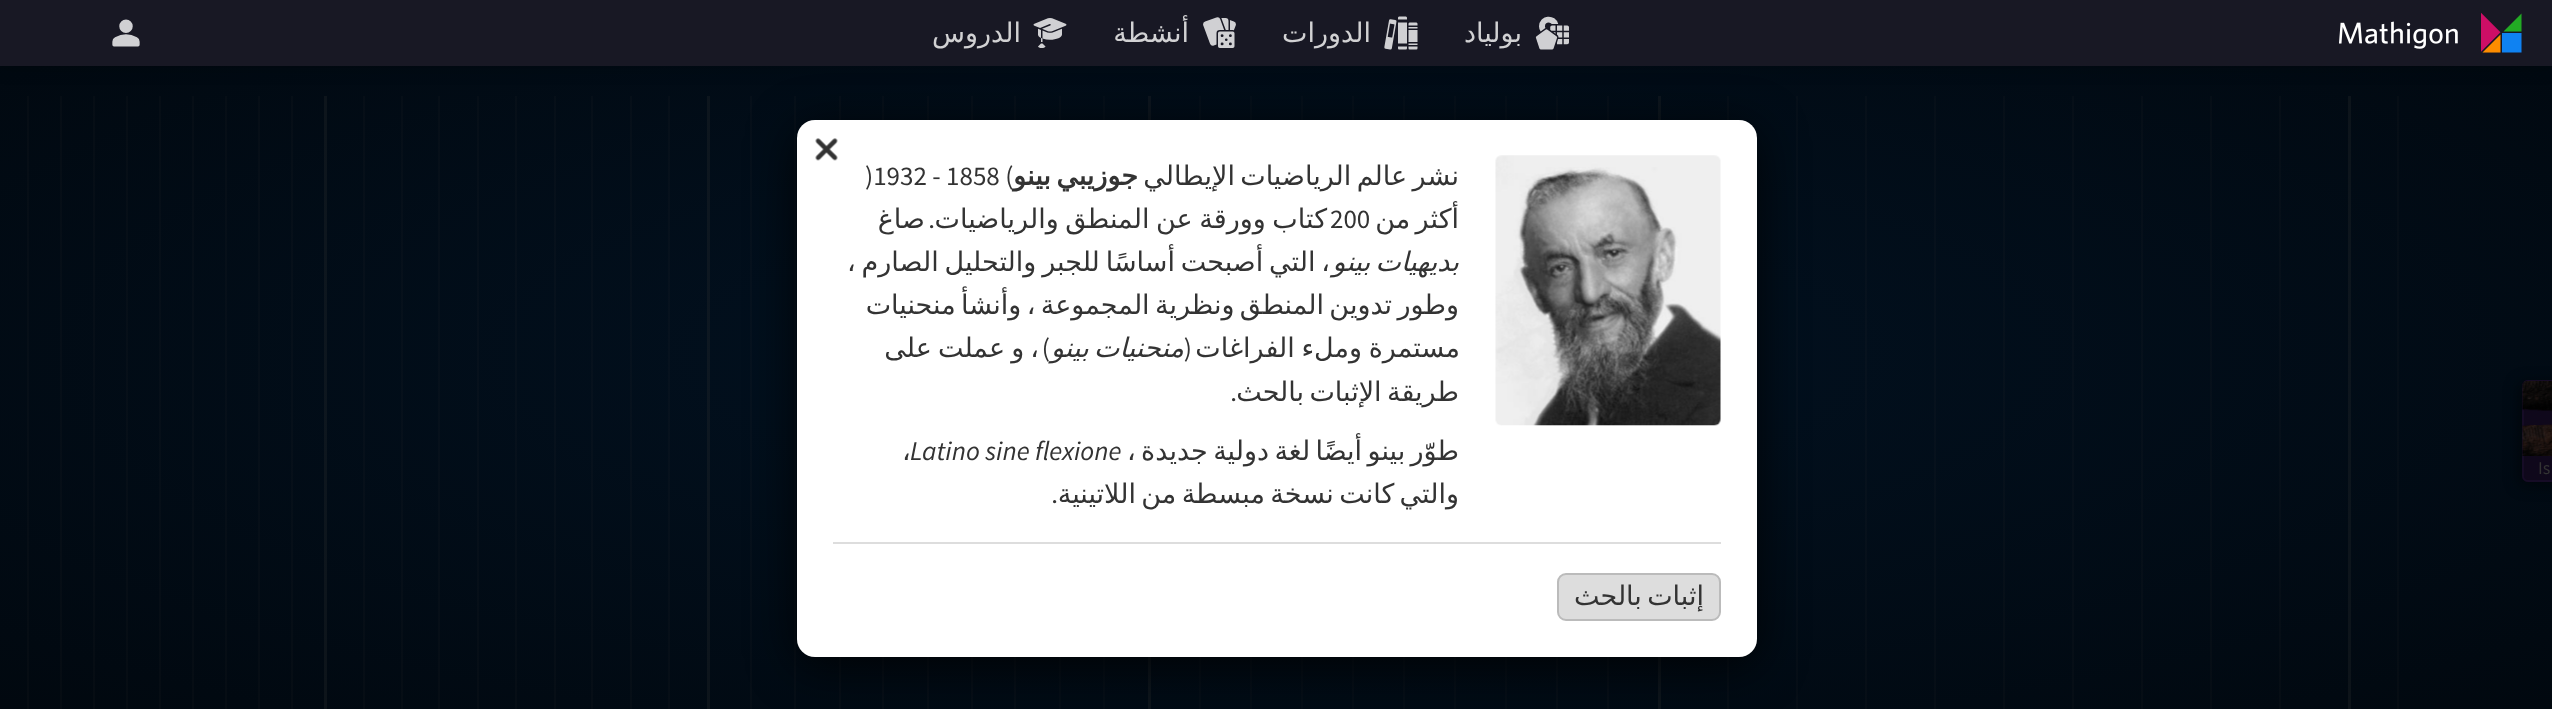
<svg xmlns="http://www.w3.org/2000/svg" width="2552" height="709">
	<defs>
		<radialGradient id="g1" gradientUnits="userSpaceOnUse" cx="0" cy="0" r="1" gradientTransform="matrix(1805 0 0 502 1277 355)"><stop offset="0" stop-color="#021222" /><stop offset="1" stop-color="#01080F" /></radialGradient>
		<radialGradient id="g2" gradientUnits="userSpaceOnUse" cx="0" cy="0" r="1" gradientTransform="matrix(1805 0 0 502 1277 355)"><stop offset="0" stop-color="#071524" /><stop offset="1" stop-color="#060C12" /></radialGradient>
		<radialGradient id="g3" gradientUnits="userSpaceOnUse" cx="0" cy="0" r="1" gradientTransform="matrix(1805 0 0 502 1277 355)"><stop offset="0" stop-color="#0E1A26" /><stop offset="1" stop-color="#0D1318" /></radialGradient>
	</defs>
	<rect width="100%" height="100%" fill="#FFFFFF" />
	<rect x="0" y="66" width="2552" height="643" fill="url(#g1)" />
	<rect x="2397" y="96" width="2" height="613" fill="url(#g2)" />
	<rect x="2348" y="96" width="3" height="613" fill="url(#g3)" />
	<rect x="2279" y="96" width="2" height="613" fill="url(#g2)" />
	<rect x="2210" y="96" width="2" height="613" fill="url(#g2)" />
	<rect x="2141" y="96" width="2" height="613" fill="url(#g2)" />
	<rect x="2072" y="96" width="2" height="613" fill="url(#g2)" />
	<rect x="2003" y="96" width="2" height="613" fill="url(#g2)" />
	<rect x="1934" y="96" width="2" height="613" fill="url(#g2)" />
	<rect x="1865" y="96" width="2" height="613" fill="url(#g2)" />
	<rect x="1796" y="96" width="2" height="613" fill="url(#g2)" />
	<rect x="1727" y="96" width="2" height="613" fill="url(#g2)" />
	<rect x="1658" y="96" width="3" height="613" fill="url(#g3)" />
	<rect x="1607" y="96" width="2" height="613" fill="url(#g2)" />
	<rect x="1556" y="96" width="2" height="613" fill="url(#g2)" />
	<rect x="1014" y="96" width="2" height="613" fill="url(#g2)" />
	<rect x="971" y="96" width="2" height="613" fill="url(#g2)" />
	<rect x="927" y="96" width="2" height="613" fill="url(#g2)" />
	<rect x="882" y="96" width="2" height="613" fill="url(#g2)" />
	<rect x="839" y="96" width="2" height="613" fill="url(#g2)" />
	<rect x="794" y="96" width="2" height="613" fill="url(#g2)" />
	<rect x="750" y="96" width="2" height="613" fill="url(#g2)" />
	<rect x="707" y="96" width="3" height="613" fill="url(#g3)" />
	<rect x="668" y="96" width="2" height="613" fill="url(#g2)" />
	<rect x="630" y="96" width="2" height="613" fill="url(#g2)" />
	<rect x="591" y="96" width="2" height="613" fill="url(#g2)" />
	<rect x="554" y="96" width="2" height="613" fill="url(#g2)" />
	<rect x="515" y="96" width="2" height="613" fill="url(#g2)" />
	<rect x="477" y="96" width="2" height="613" fill="url(#g2)" />
	<rect x="438" y="96" width="2" height="613" fill="url(#g2)" />
	<rect x="401" y="96" width="2" height="613" fill="url(#g2)" />
	<rect x="363" y="96" width="2" height="613" fill="url(#g2)" />
	<rect x="324" y="96" width="3" height="613" fill="url(#g3)" />
	<rect x="291" y="96" width="2" height="613" fill="url(#g2)" />
	<rect x="258" y="96" width="2" height="613" fill="url(#g2)" />
	<rect x="225" y="96" width="2" height="613" fill="url(#g2)" />
	<rect x="192" y="96" width="2" height="613" fill="url(#g2)" />
	<rect x="159" y="96" width="2" height="613" fill="url(#g2)" />
	<rect x="126" y="96" width="2" height="613" fill="url(#g2)" />
	<rect x="93" y="96" width="2" height="613" fill="url(#g2)" />
	<rect x="60" y="96" width="2" height="613" fill="url(#g2)" />
	<rect x="27" y="96" width="2" height="613" fill="url(#g2)" />
	<rect x="0" y="0" width="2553" height="66" fill="#000000" fill-opacity="0.25" filter="blur(9px)" />
	<rect x="1505" y="96" width="2" height="613" fill="#333333" fill-opacity="0.1" />
	<rect x="1454" y="96" width="2" height="613" fill="#333333" fill-opacity="0.1" />
	<rect x="1403" y="96" width="2" height="613" fill="#333333" fill-opacity="0.1" />
	<rect x="1352" y="96" width="2" height="613" fill="#333333" fill-opacity="0.1" />
	<rect x="1301" y="96" width="2" height="613" fill="#333333" fill-opacity="0.1" />
	<rect x="1250" y="96" width="2" height="613" fill="#333333" fill-opacity="0.1" />
	<rect x="1199" y="96" width="2" height="613" fill="#333333" fill-opacity="0.1" />
	<rect x="1148" y="96" width="3" height="613" fill="#333333" fill-opacity="0.25" />
	<rect x="1103" y="96" width="2" height="613" fill="#333333" fill-opacity="0.1" />
	<rect x="1059" y="96" width="2" height="613" fill="#333333" fill-opacity="0.1" />
	<rect x="797" y="129" width="960" height="537" rx="18" fill="#000000" fill-opacity="0.8" filter="blur(24px)" />
	<rect x="0" y="0" width="2552" height="66" fill="#181824" />
	<image x="2481" y="12" width="41" height="41" href="assets/img1.png" />
	<image x="2339" y="21" width="119" height="28" href="assets/img2.png" />
	<image x="1535" y="16" width="34" height="34" href="assets/img3.png" />
	<text x="1522" y="42" font-family="DejaVu Sans" font-size="27" direction="rtl" fill="#D1D1D3">بولياد</text>
	<image x="1384" y="16" width="34" height="34" href="assets/img4.png" />
	<text x="1371" y="42" font-family="DejaVu Sans" font-size="27" direction="rtl" fill="#D1D1D3">الدورات</text>
	<image x="1203" y="17" width="33" height="31" href="assets/img5.png" />
	<text x="1189" y="42" font-family="DejaVu Sans" font-size="27" direction="rtl" fill="#D1D1D3">أنشطة</text>
	<image x="1033" y="18" width="34" height="30" href="assets/img6.png" />
	<text x="1021" y="42" font-family="DejaVu Sans" font-size="27" direction="rtl" fill="#D1D1D3">الدروس</text>
	<image x="112" y="19" width="28" height="28" href="assets/img7.png" />
	<rect x="2519" y="383" width="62" height="102" rx="6" fill="#000000" fill-opacity="0.5" filter="blur(7.5px)" />
	<path d="M2528 380H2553V482H2528C2524.5 482 2522 479.5 2522 476V386C2522 382.5 2524.5 380 2528 380Z" fill="#0F081B" />
	<rect x="2523" y="381" width="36" height="100" rx="5" fill="none" stroke="#160C26" stroke-width="2" />
	<image x="2522" y="381" width="30" height="75" href="assets/img8.png" />
	<text x="2538" y="474" font-family="Source Sans Pro" font-size="18" fill="#333333">Is</text>
	<rect x="797" y="120" width="960" height="537" rx="18" fill="#FFFFFF" />
	<image x="815" y="138" width="23" height="23" href="assets/img9.png" />
	<image x="1495" y="155" width="226" height="271" href="assets/img10.png" />
	<text x="1459" y="185" word-spacing="-3.25" font-family="DejaVu Sans" font-size="27" direction="rtl" fill="#333333">نشر عالم الرياضيات الإيطالي</text>
	<text x="1138" y="185" word-spacing="-3.25" font-family="DejaVu Sans" font-size="27" font-weight="700" direction="rtl" fill="#333333">جوزيبي بينو</text>
	<text x="865" y="185" font-family="Source Sans Pro" font-size="27" fill="#333333">)1932 - 1858 (</text>
	<g font-family="DejaVu Sans" font-size="27" direction="rtl" fill="#333333">
		<text x="1459" y="228" word-spacing="-3.25">أكثر من</text>
		<text x="1327" y="228" word-spacing="-2">كتاب وورقة عن المنطق والرياضيات</text>
	</g>
	<text x="1330" y="228" font-family="Source Sans Pro" font-size="27" fill="#333333">200</text>
	<text x="935" y="228" font-family="Source Sans Pro" font-size="27" direction="rtl" fill="#333333">.</text>
	<text x="925" y="228" font-family="DejaVu Sans" font-size="27" direction="rtl" fill="#333333">صاغ</text>
	<text x="1459" y="271" word-spacing="-3.25" font-family="DejaVu Sans" font-size="27" font-style="italic" direction="rtl" fill="#333333">بديهيات بينو</text>
	<g font-family="DejaVu Sans" font-size="27" direction="rtl" fill="#333333">
		<text x="1330" y="271" word-spacing="-2.75">، التي أصبحت أساسًا للجبر والتحليل الصارم ،</text>
		<text x="1459" y="314" word-spacing="-3.25">وطور تدوين المنطق ونظرية المجموعة ، وأنشأ منحنيات</text>
		<text x="1460" y="357" word-spacing="-2">مستمرة وملء الفراغات</text>
	</g>
	<text x="1192" y="357" font-family="Source Sans Pro" font-size="27" direction="rtl" fill="#333333">(</text>
	<text x="1184" y="357" word-spacing="-3.25" font-family="DejaVu Sans" font-size="27" font-style="italic" direction="rtl" fill="#333333">منحنيات بينو</text>
	<text x="1039" y="357" word-spacing="-2.5" font-family="DejaVu Sans" font-size="27" direction="rtl" fill="#333333">، و عملت على</text>
	<text x="1050" y="357" font-family="Source Sans Pro" font-size="27" direction="rtl" fill="#333333">)</text>
	<text x="1459" y="401" word-spacing="-3.25" font-family="DejaVu Sans" font-size="27" direction="rtl" fill="#333333">طريقة الإثبات بالحث</text>
	<text x="1237" y="401" font-family="Source Sans Pro" font-size="27" direction="rtl" fill="#333333">.</text>
	<text x="1459" y="460" word-spacing="-3.25" font-family="DejaVu Sans" font-size="27" direction="rtl" fill="#333333">طوّر بينو أيضًا لغة دولية جديدة ،</text>
	<text x="910" y="460" font-family="Source Sans Pro" font-size="27" font-style="italic" fill="#333333">Latino sine flexione</text>
	<text x="902" y="460" font-family="DejaVu Sans" font-size="27" fill="#333333">،</text>
	<text x="1459" y="503" word-spacing="-3.25" font-family="DejaVu Sans" font-size="27" direction="rtl" fill="#333333">والتي كانت نسخة مبسطة من اللاتينية</text>
	<text x="1058" y="503" font-family="Source Sans Pro" font-size="27" direction="rtl" fill="#333333">.</text>
	<rect x="833" y="542" width="888" height="2" fill="#DDDDDD" />
	<rect x="1558" y="574" width="162" height="46" rx="8" fill="#DDDDDD" stroke="#BBBBBB" stroke-width="2" />
	<text x="1704" y="605" word-spacing="-3.25" font-family="DejaVu Sans" font-size="27" direction="rtl" fill="#333333">إثبات بالحث</text>
</svg>
